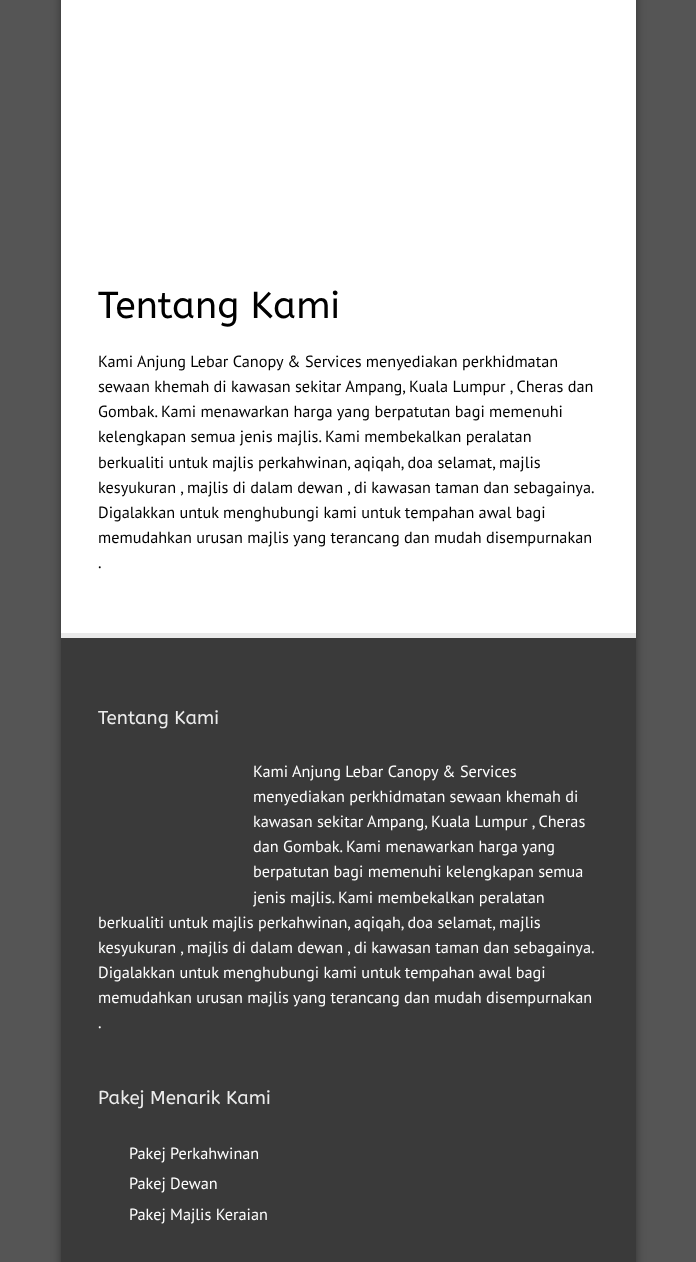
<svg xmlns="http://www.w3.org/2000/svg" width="696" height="1262">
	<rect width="100%" height="100%" fill="#555555" />
	<rect x="61" y="-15" width="575" height="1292" fill="#000000" fill-opacity="0.4" filter="blur(5px)" />
	<rect x="61" y="0" width="575" height="633" fill="#FFFFFF" />
	<text x="98" y="318" font-family="ABeeZee" font-size="37.5" fill="#000000">Tentang Kami</text>
	<g font-family="PT Sans" font-size="16.25" fill="#000000">
		<text x="98" y="367">Kami Anjung Lebar Canopy &amp; Services menyediakan perkhidmatan</text>
		<text x="98" y="392">sewaan khemah di kawasan sekitar Ampang, Kuala Lumpur , Cheras dan</text>
		<text x="98" y="417">Gombak. Kami menawarkan harga yang berpatutan bagi memenuhi</text>
		<text x="98" y="442">kelengkapan semua jenis majlis. Kami membekalkan peralatan</text>
		<text x="98" y="468">berkualiti untuk majlis perkahwinan, aqiqah, doa selamat, majlis</text>
		<text x="98" y="493">kesyukuran , majlis di dalam dewan , di kawasan taman dan sebagainya.</text>
		<text x="98" y="518">Digalakkan untuk menghubungi kami untuk tempahan awal bagi</text>
		<text x="98" y="543">memudahkan urusan majlis yang terancang dan mudah disempurnakan</text>
		<text x="98" y="568">.</text>
	</g>
	<rect x="61" y="633" width="575" height="5" fill="#EAEAEA" />
	<rect x="61" y="638" width="575" height="624" fill="#3A3A3A" />
	<text x="98" y="724" font-family="ABeeZee" font-size="18.75" fill="#ECECEC">Tentang Kami</text>
	<g font-family="PT Sans" font-size="16.25" fill="#FFFFFF">
		<text x="253" y="777">Kami Anjung Lebar Canopy &amp; Services</text>
		<text x="253" y="802">menyediakan perkhidmatan sewaan khemah di</text>
		<text x="253" y="827">kawasan sekitar Ampang, Kuala Lumpur , Cheras</text>
		<text x="253" y="852">dan Gombak. Kami menawarkan harga yang</text>
		<text x="253" y="877">berpatutan bagi memenuhi kelengkapan semua</text>
		<text x="253" y="903">jenis majlis. Kami membekalkan peralatan</text>
		<text x="98" y="928">berkualiti untuk majlis perkahwinan, aqiqah, doa selamat, majlis</text>
		<text x="98" y="953">kesyukuran , majlis di dalam dewan , di kawasan taman dan sebagainya.</text>
		<text x="98" y="978">Digalakkan untuk menghubungi kami untuk tempahan awal bagi</text>
		<text x="98" y="1003">memudahkan urusan majlis yang terancang dan mudah disempurnakan</text>
		<text x="98" y="1028">.</text>
	</g>
	<text x="98" y="1104" font-family="ABeeZee" font-size="18.75" fill="#ECECEC">Pakej Menarik Kami</text>
	<g font-family="PT Sans" font-size="16.25" fill="#FFFFFF">
		<text x="129" y="1159">Pakej Perkahwinan</text>
		<text x="129" y="1189">Pakej Dewan</text>
		<text x="129" y="1220">Pakej Majlis Keraian</text>
	</g>
</svg>
